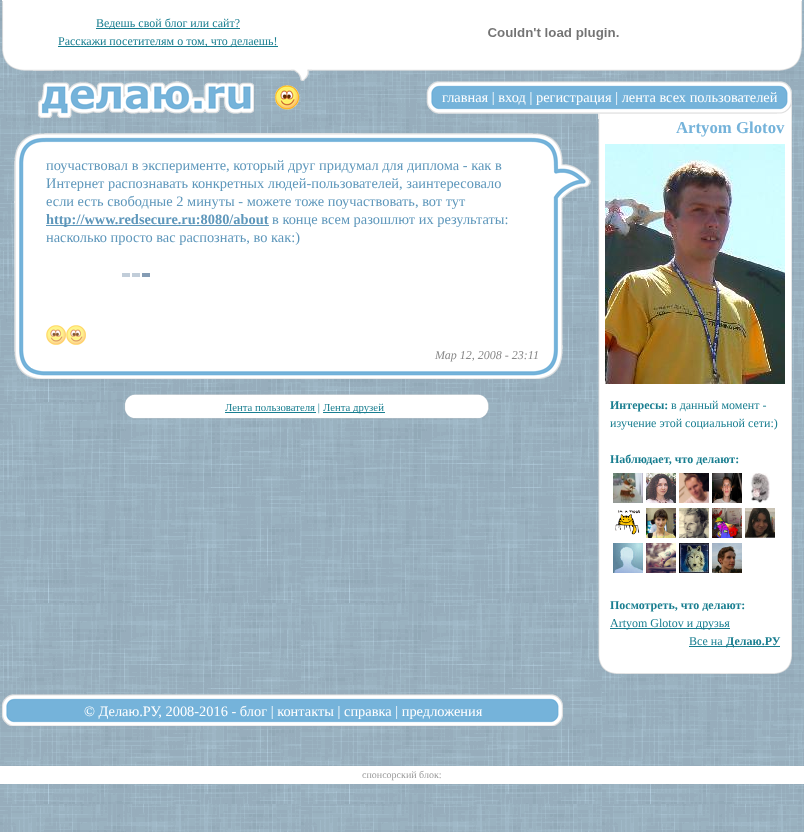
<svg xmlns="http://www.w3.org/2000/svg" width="804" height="832">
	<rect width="100%" height="100%" fill="#FFFFFF" />
	<image x="0" y="0" width="804" height="832" href="assets/img1.png" />
	<rect x="2" y="0" width="800" height="1" fill="#FFFFFF" />
	<image x="2" y="1" width="15" height="69" href="assets/img2.png" />
	<rect x="17" y="1" width="771" height="65" fill="#FFFFFF" />
	<rect x="96" y="28" width="144" height="1" fill="#197E90" />
	<text x="96" y="27" font-family="Liberation Serif" font-size="12" fill="#197E90">Ведешь свой блог или сайт?</text>
	<rect x="58" y="46" width="220" height="1" fill="#197E90" />
	<text x="58" y="45" font-family="Liberation Serif" font-size="12" fill="#197E90">Расскажи посетителям о том, что делаешь!</text>
	<image x="488" y="28" width="131" height="12" href="assets/img3.png" />
	<image x="17" y="66" width="761" height="15" href="assets/img4.png" />
	<image x="778" y="66" width="10" height="5" href="assets/img5.png" />
	<image x="788" y="1" width="14" height="68" href="assets/img6.png" />
	<image x="37" y="81" width="217" height="37" href="assets/img7.png" />
	<image x="274" y="85" width="26" height="25" href="assets/img8.png" />
	<image x="426" y="81" width="351" height="33" href="assets/img9.png" />
	<text x="442" y="102" font-family="Liberation Serif" font-size="14.4" fill="#FFFFFF">главная | вход | регистрация | лента всех пользователей</text>
	<image x="598" y="113" width="179" height="6" href="assets/img10.png" />
	<image x="777" y="81" width="15" height="38" href="assets/img11.png" />
	<image x="14" y="135" width="17" height="210" href="assets/img12.png" />
	<image x="31" y="133" width="492" height="13" href="assets/img13.png" />
	<image x="523" y="133" width="22" height="13" href="assets/img14.png" />
	<rect x="31" y="146" width="514" height="221" fill="#FFFFFF" />
	<g font-family="Liberation Serif" font-size="14.4" fill="#5E97BB">
		<text x="46" y="170">поучаствовал в эксперименте, который друг придумал для диплома - как в</text>
		<text x="46" y="188">Интернет распознавать конкретных людей-пользователей, заинтересовало</text>
		<text x="46" y="206">если есть свободные 2 минуты - можете тоже поучаствовать, вот тут</text>
	</g>
	<rect x="46" y="225" width="223" height="1" fill="#5E97BB" />
	<text x="46" y="224" font-family="Liberation Serif" font-size="14.4" font-weight="700" fill="#5E97BB">http://www.redsecure.ru:8080/about</text>
	<g font-family="Liberation Serif" font-size="14.4" fill="#5E97BB">
		<text x="272" y="224">в конце всем разошлют их результаты:</text>
		<text x="46" y="242">насколько просто вас распознать, во как:)</text>
	</g>
	<image x="122" y="273" width="28" height="4" href="assets/img15.png" />
	<image x="46" y="325" width="20" height="20" href="assets/img16.png" />
	<image x="66" y="325" width="20" height="20" href="assets/img16.png" />
	<image x="545" y="134" width="46" height="211" href="assets/img17.png" />
	<image x="14" y="345" width="17" height="33" href="assets/img18.png" />
	<text x="435" y="359" font-family="Liberation Serif" font-size="12" font-style="italic" fill="#888888">Мар 12, 2008 - 23:11</text>
	<image x="31" y="367" width="492" height="12" href="assets/img19.png" />
	<image x="523" y="367" width="22" height="12" href="assets/img20.png" />
	<image x="545" y="345" width="18" height="33" href="assets/img21.png" />
	<image x="124" y="394" width="349" height="25" href="assets/img22.png" />
	<rect x="225" y="412" width="91" height="1" fill="#197E90" />
	<text x="225" y="411" font-family="Liberation Serif" font-size="10.75" fill="#197E90">Лента пользователя |</text>
	<rect x="323" y="412" width="62" height="1" fill="#197E90" />
	<text x="323" y="411" font-family="Liberation Serif" font-size="10.75" fill="#197E90">Лента друзей</text>
	<image x="473" y="394" width="16" height="25" href="assets/img23.png" />
	<image x="598" y="119" width="2" height="531" href="assets/img24.png" />
	<rect x="600" y="119" width="190" height="531" fill="#FFFFFF" />
	<text x="676" y="133" font-family="Liberation Serif" font-size="16.75" font-weight="700" fill="#75B3DA">Artyom Glotov</text>
	<image x="605" y="144" width="180" height="240" href="assets/img25.png" />
	<text x="610" y="409" font-family="Liberation Serif" font-size="12" font-weight="700" fill="#197E90">Интересы:</text>
	<g font-family="Liberation Serif" font-size="12" fill="#197E90">
		<text x="671" y="409">в данный момент -</text>
		<text x="610" y="427">изучение этой социальной сети:)</text>
	</g>
	<text x="610" y="463" font-family="Liberation Serif" font-size="12" font-weight="700" fill="#197E90">Наблюдает, что делают:</text>
	<image x="613" y="473" width="30" height="30" href="assets/img26.png" />
	<image x="646" y="473" width="30" height="30" href="assets/img27.png" />
	<image x="679" y="473" width="30" height="30" href="assets/img28.png" />
	<image x="712" y="473" width="30" height="30" href="assets/img29.png" />
	<image x="750" y="473" width="20" height="30" href="assets/img30.png" />
	<image x="615" y="510" width="25" height="25" href="assets/img31.png" />
	<image x="646" y="508" width="30" height="30" href="assets/img32.png" />
	<image x="679" y="508" width="30" height="30" href="assets/img33.png" />
	<image x="712" y="508" width="30" height="30" href="assets/img34.png" />
	<image x="745" y="508" width="30" height="30" href="assets/img35.png" />
	<image x="613" y="543" width="30" height="30" href="assets/img36.png" />
	<image x="646" y="543" width="30" height="30" href="assets/img37.png" />
	<image x="679" y="543" width="30" height="30" href="assets/img38.png" />
	<image x="712" y="543" width="30" height="30" href="assets/img39.png" />
	<text x="610" y="609" font-family="Liberation Serif" font-size="12" font-weight="700" fill="#197E90">Посмотреть, что делают:</text>
	<rect x="610" y="628" width="120" height="1" fill="#197E90" />
	<g font-family="Liberation Serif" font-size="12" fill="#197E90">
		<text x="610" y="627">Artyom Glotov и друзья</text>
		<text x="689" y="645">Все на</text>
	</g>
	<rect x="689" y="646" width="91" height="1" fill="#197E90" />
	<text x="726" y="645" font-family="Liberation Serif" font-size="12" font-weight="700" fill="#197E90">Делаю.РУ</text>
	<image x="790" y="119" width="2" height="531" href="assets/img40.png" />
	<image x="598" y="650" width="172" height="24" href="assets/img41.png" />
	<image x="770" y="650" width="22" height="24" href="assets/img42.png" />
	<image x="2" y="694" width="546" height="32" href="assets/img43.png" />
	<text x="84" y="716" font-family="Liberation Serif" font-size="14.4" fill="#FFFFFF">© Делаю.РУ, 2008-2016 - блог | контакты | справка | предложения</text>
	<image x="548" y="694" width="15" height="32" href="assets/img44.png" />
	<rect x="0" y="766" width="804" height="18" fill="#FFFFFF" />
	<text x="362" y="778" font-family="Liberation Serif" font-size="10" fill="#999999">cпонсорский блок:</text>
</svg>
